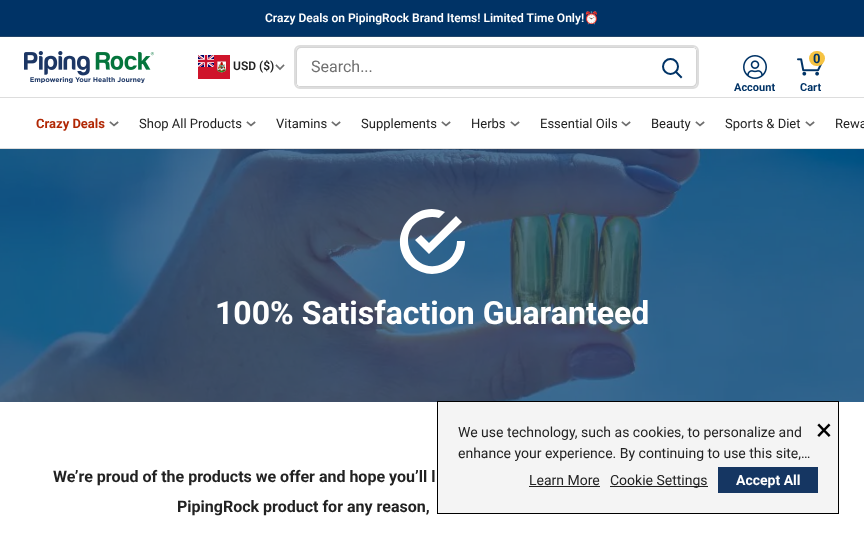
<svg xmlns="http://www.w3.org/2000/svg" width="864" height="539">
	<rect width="100%" height="100%" fill="#FFFFFF" />
	<rect x="0" y="0" width="864" height="36" fill="#003366" />
	<rect x="0" y="36" width="864" height="1" fill="#224569" />
	<text x="265" y="22" font-family="Roboto" font-size="12" font-weight="600" fill="#FFFFFF">Crazy Deals on PipingRock Brand Items! Limited Time Only!</text>
	<text x="584" y="22" font-family="Noto Color Emoji" font-size="12" font-weight="700" fill="#FFFFFF">⏰</text>
	<image x="24" y="51" width="130" height="32" href="assets/img1.png" />
	<image x="198" y="55" width="32" height="24" href="assets/img2.png" />
	<text x="233" y="70" font-family="Roboto" font-size="12" font-weight="600" fill="#222222">USD ($)</text>
	<path d="M283.5 65.5L280 69L276.5 65.5" fill="none" stroke="#707070" stroke-width="1.7" stroke-linecap="square" />
	<path d="M297 85C297 86 299 87 300 87H693C695 87 697 85 697 83V51C697 50 696 48 695 48L696 50V82C696 84 694 86 692 86H299Z" fill="#D4D4D4" />
	<path d="M301 48H694L696 49C696 48 694 47 693 47H300C298 47 296 49 296 51V83C296 84 297 86 298 86L297 84V52C297 50 299 48 301 48Z" fill="#707070" fill-opacity="0.3" />
	<rect x="295" y="46" width="403" height="42" rx="5" fill="none" stroke="#DDDDDD" stroke-width="2" />
	<text x="311" y="72" font-family="Roboto" font-size="16" fill="#707070">Search...</text>
	<path d="M681 77L676 72" fill="none" stroke="#003366" stroke-width="2" stroke-linecap="square" />
	<circle cx="670.5" cy="66.5" r="7.5" fill="none" stroke="#003366" stroke-width="2" />
	<image x="743" y="55" width="24" height="24" href="assets/img3.png" />
	<text x="734" y="91" font-family="Roboto" font-size="11" font-weight="700" fill="#003366">Account</text>
	<image x="797" y="58" width="26" height="18" href="assets/img4.png" />
	<rect x="809" y="51" width="16" height="15" rx="7.5" fill="#F6C342" />
	<text x="813" y="63" font-family="Roboto" font-size="13" font-weight="700" fill="#003366">0</text>
	<text x="800" y="91" font-family="Roboto" font-size="11" font-weight="700" fill="#003366">Cart</text>
	<rect x="0" y="97" width="864" height="1" fill="#DDDDDD" />
	<rect x="0" y="148" width="864" height="1" fill="#DDDDDD" />
	<text x="36" y="128" font-family="Roboto" font-size="13" font-weight="700" fill="#B12704">Crazy Deals</text>
	<path d="M117.5 122.5L114 125.5L110.5 122.5" fill="none" stroke="#707070" stroke-width="1.7" stroke-linecap="square" />
	<text x="139" y="128" font-family="Roboto" font-size="13" fill="#222222">Shop All Products</text>
	<path d="M254.5 122.5L251 125.5L247.5 122.5" fill="none" stroke="#707070" stroke-width="1.7" stroke-linecap="square" />
	<text x="276" y="128" font-family="Roboto" font-size="13" fill="#222222">Vitamins</text>
	<path d="M339.5 122.5L336 125.5L332.5 122.5" fill="none" stroke="#707070" stroke-width="1.7" stroke-linecap="square" />
	<text x="361" y="128" font-family="Roboto" font-size="13" fill="#222222">Supplements</text>
	<path d="M449.5 122.5L446 125.5L442.5 122.5" fill="none" stroke="#707070" stroke-width="1.7" stroke-linecap="square" />
	<text x="471" y="128" font-family="Roboto" font-size="13" fill="#222222">Herbs</text>
	<path d="M518.5 122.5L515 125.5L511.5 122.5" fill="none" stroke="#707070" stroke-width="1.7" stroke-linecap="square" />
	<text x="540" y="128" font-family="Roboto" font-size="13" fill="#222222">Essential Oils</text>
	<path d="M629.5 122.5L626 125.5L622.5 122.5" fill="none" stroke="#707070" stroke-width="1.7" stroke-linecap="square" />
	<text x="651" y="128" font-family="Roboto" font-size="13" fill="#222222">Beauty</text>
	<path d="M703.5 122.5L700 125.5L696.5 122.5" fill="none" stroke="#707070" stroke-width="1.7" stroke-linecap="square" />
	<text x="725" y="128" font-family="Roboto" font-size="13" fill="#222222">Sports &amp; Diet</text>
	<path d="M813.5 122.5L810 125.5L806.5 122.5" fill="none" stroke="#707070" stroke-width="1.7" stroke-linecap="square" />
	<text x="835" y="128" font-family="Roboto" font-size="13" fill="#222222">Rewa</text>
	<image x="0" y="149" width="864" height="253" href="assets/img5.png" />
	<path d="M432 274C425 274 418 271 412 267C383 243 411 197 445 212L439 218C433 216 426 217 420 220C393 236 416 278 444 263C452 259 457 250 457 241H465C465 259 450 274 432 274Z" fill="#FFFFFF" />
	<path d="M415 240L421 235L429 243L456 216L462 222L429 254Z" fill="#FFFFFF" />
	<text x="215" y="324" font-family="Roboto" font-size="32" font-weight="700" fill="#FFFFFF">100% Satisfaction Guaranteed</text>
	<g font-family="Roboto" font-size="16" font-weight="700" fill="#222222">
		<text x="53" y="482">We’re proud of the products we offer and hope you’ll l</text>
		<text x="177" y="512">PipingRock product for any reason,</text>
	</g>
	<rect x="437.5" y="401.5" width="401" height="112" fill="#F4F4F4" stroke="#000000" />
	<text x="816" y="440" font-family="Roboto" font-size="30" fill="#000000">×</text>
	<text x="529" y="485" font-family="Roboto" font-size="14" fill="#222222">Learn More</text>
	<rect x="529" y="486" width="71" height="1" fill="#222222" />
	<rect x="610" y="486" width="98" height="1" fill="#222222" />
	<text x="610" y="485" font-family="Roboto" font-size="14" fill="#222222">Cookie Settings</text>
	<rect x="718" y="467" width="100" height="26" fill="#153662" />
	<text x="736" y="485" font-family="Roboto" font-size="14" font-weight="700" fill="#FFFFFF">Accept All</text>
	<g font-family="Roboto" font-size="14" fill="#222222">
		<text x="458" y="437">We use technology, such as cookies, to personalize and</text>
		<text x="458" y="458">enhance your experience. By continuing to use this site,…</text>
	</g>
</svg>
